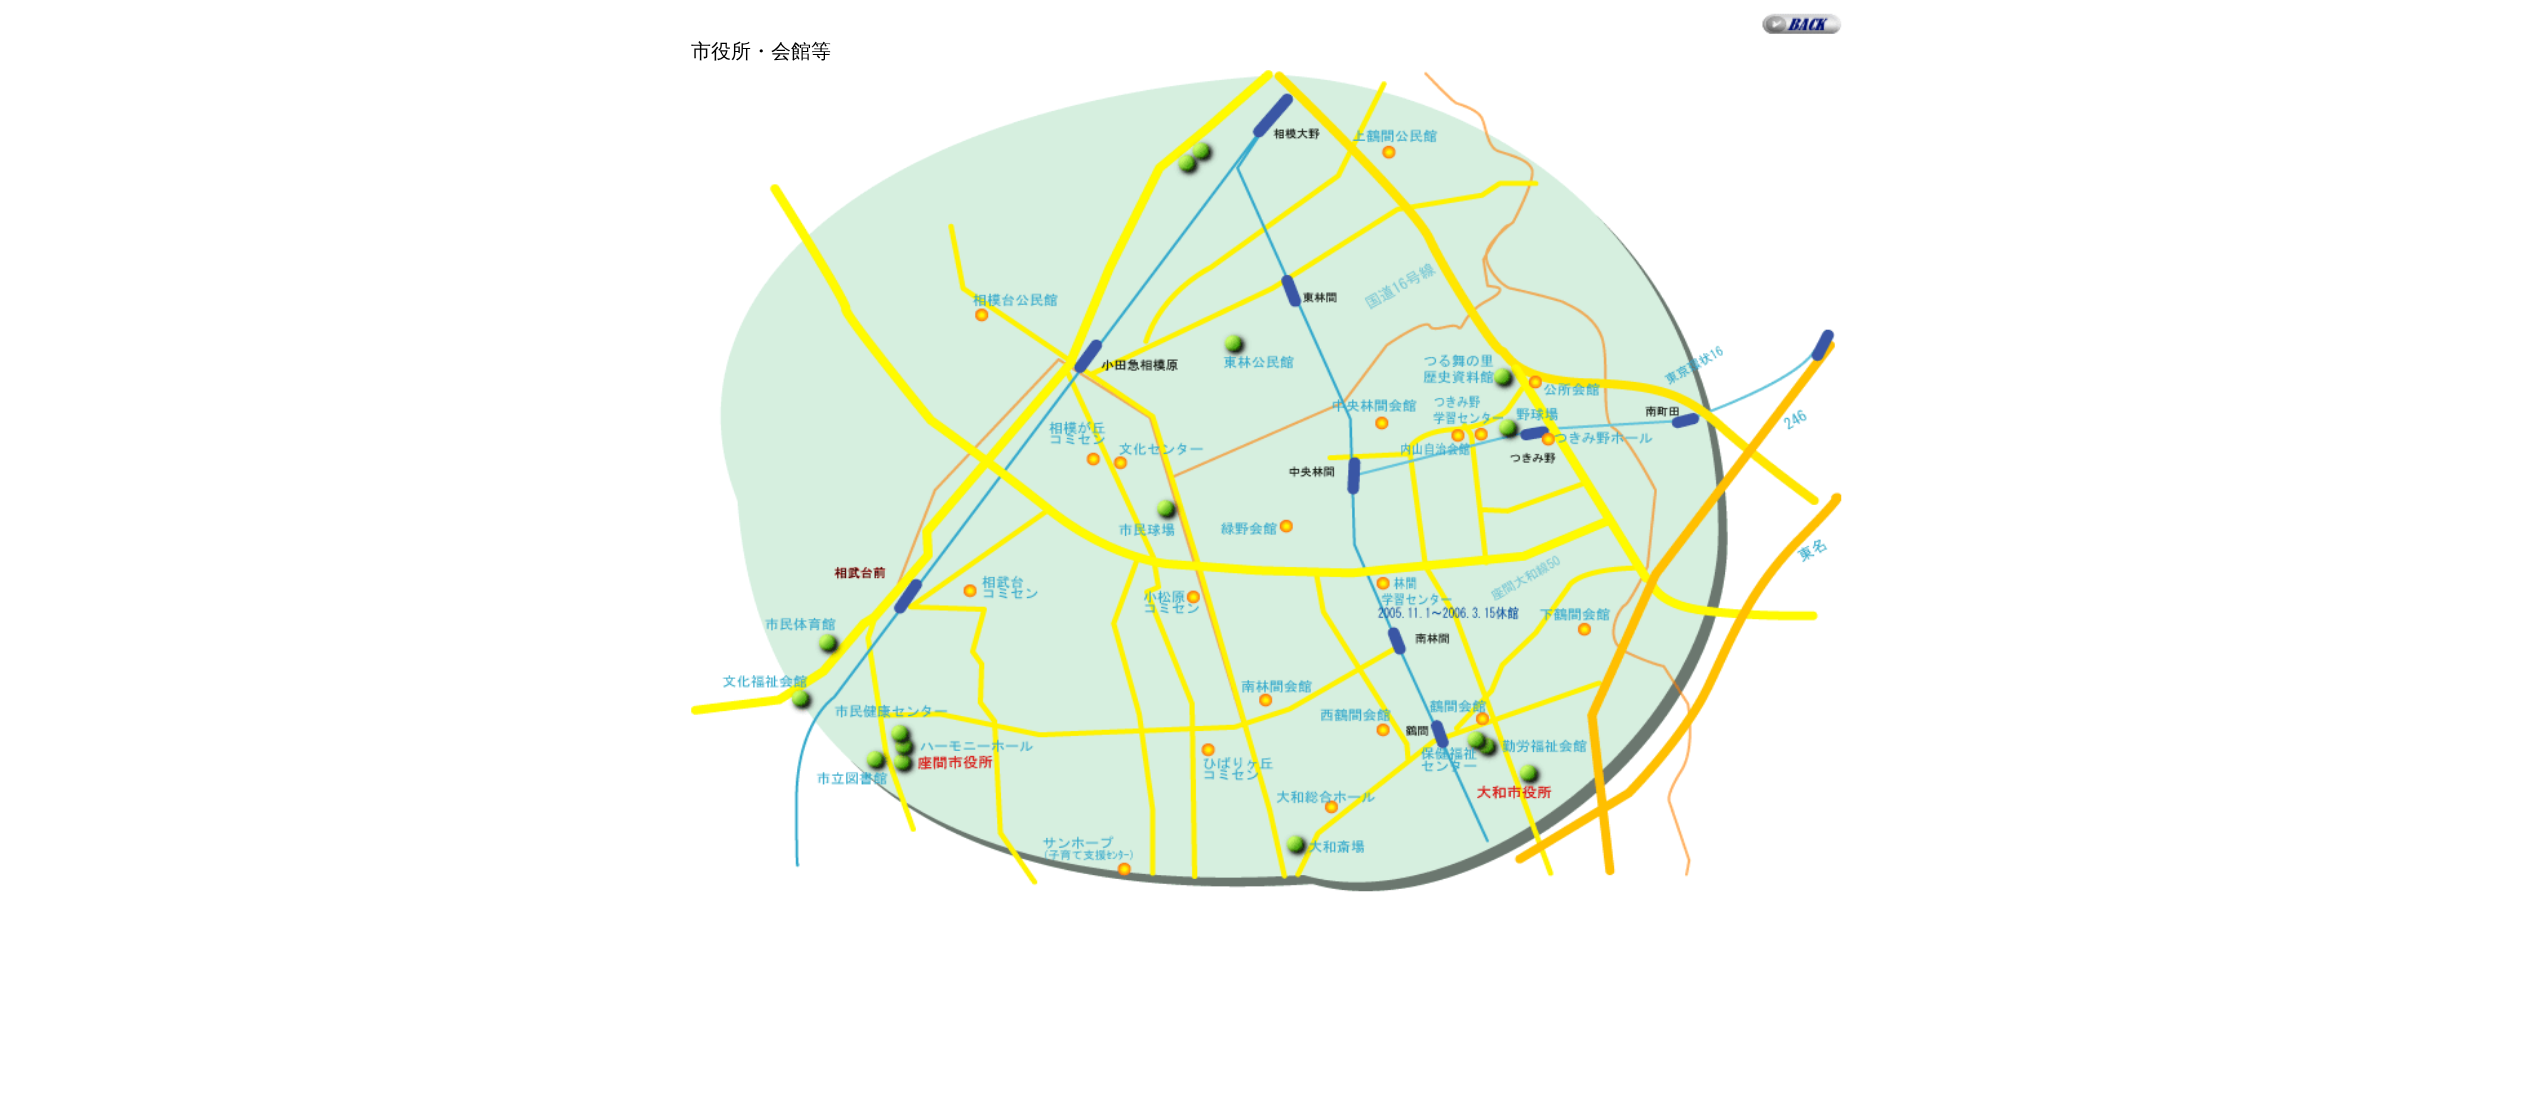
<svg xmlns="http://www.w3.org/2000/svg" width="2531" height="1111">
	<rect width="100%" height="100%" fill="#FFFFFF" />
	<image x="1762" y="13" width="80" height="21" href="assets/img1.png" />
	<text x="691" y="58" font-family="WenQuanYi Zen Hei" font-size="20" font-weight="500" fill="#000000">市役所・会館等</text>
	<image x="691" y="70" width="1151" height="822" href="assets/img2.png" />
</svg>
